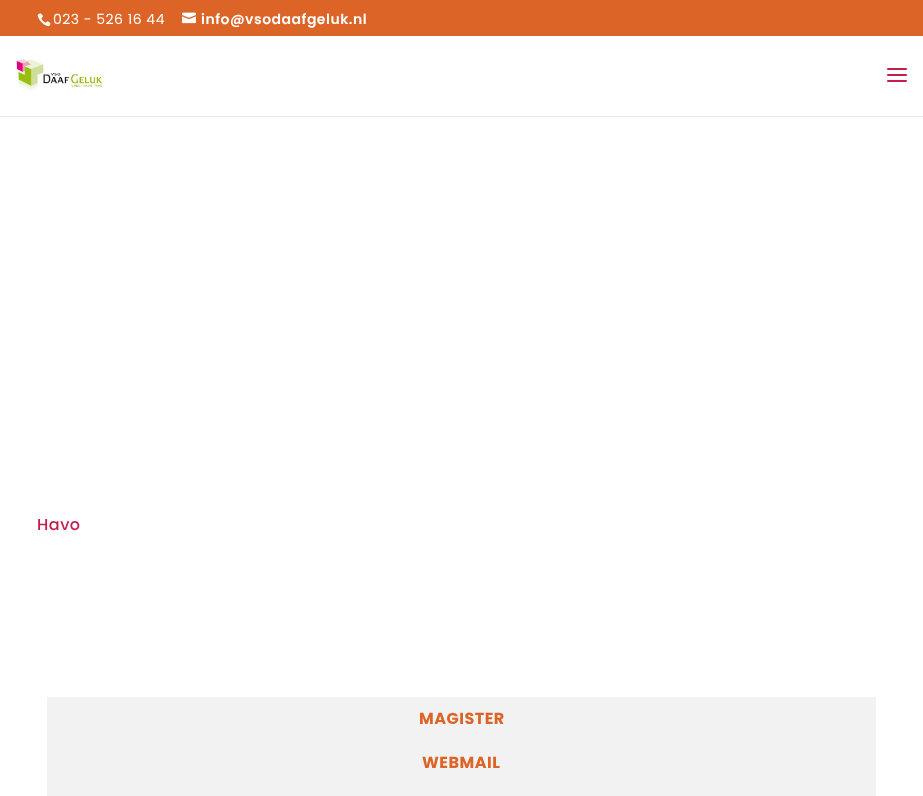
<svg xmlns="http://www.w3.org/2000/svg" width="923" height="796">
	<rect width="100%" height="100%" fill="#FFFFFF" />
	<rect x="0" y="0" width="923" height="36" fill="#DC6427" />
	<image x="37" y="13" width="14" height="14" href="assets/img1.png" />
	<text x="53" y="24" font-family="Poppins" font-size="14" letter-spacing="0.5" fill="#FFFFFF">023 - 526 16 44</text>
	<image x="182" y="12" width="14" height="12" href="assets/img2.png" />
	<text x="201" y="24" font-family="Poppins" font-size="14" font-weight="600" letter-spacing="0.5" fill="#FFFFFF">info@vsodaafgeluk.nl</text>
	<rect x="0" y="116" width="923" height="1" fill="#E6E6E6" />
	<image x="16" y="59" width="87" height="33" href="assets/img3.png" />
	<image x="887" y="68" width="20" height="14" href="assets/img4.png" />
	<text x="37" y="530" font-family="Poppins" font-size="16" font-weight="500" letter-spacing="0.5" fill="#C51D4C">Havo</text>
	<rect x="47" y="697" width="829" height="99" fill="#F2F2F2" />
	<g font-family="Poppins" font-size="16" font-weight="700" letter-spacing="0.5" fill="#DC6427">
		<text x="419" y="724">MAGISTER</text>
		<text x="422" y="768">WEBMAIL</text>
	</g>
</svg>
